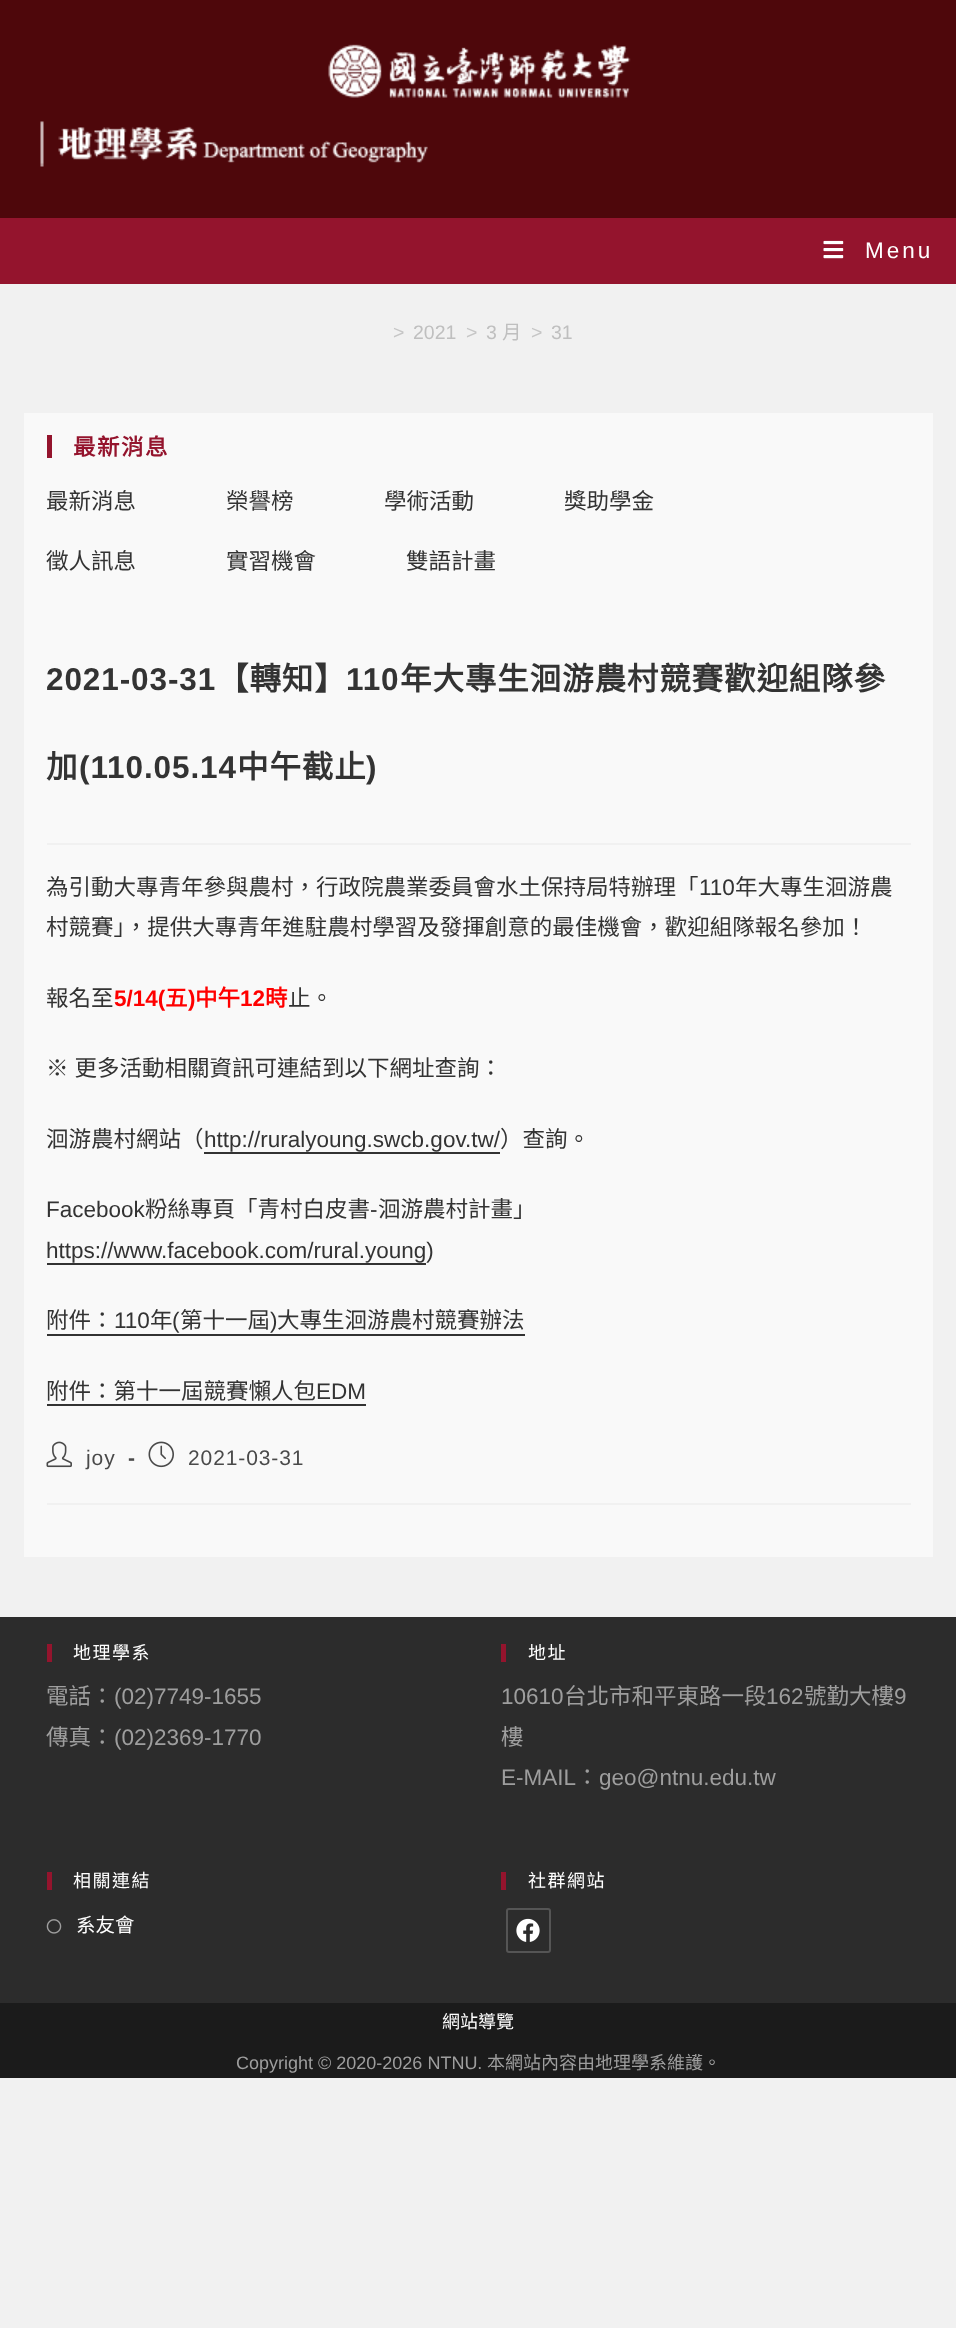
<svg xmlns="http://www.w3.org/2000/svg" width="956" height="2328">
	<rect width="100%" height="100%" fill="#F1F1F1" />
	<rect x="0" y="0" width="956" height="218" fill="#4E070B" />
	<image x="328" y="44" width="303" height="54" href="assets/img1.png" />
	<image x="40" y="121" width="388" height="46" href="assets/img2.png" />
	<rect x="0" y="218" width="956" height="66" fill="#94142D" />
	<image x="823" y="240" width="21" height="19" href="assets/img3.png" />
	<text x="865" y="258" font-family="Liberation Sans" font-size="22.5" letter-spacing="3" fill="#FFFFFF">Menu</text>
	<text x="393" y="339" font-family="Liberation Sans" font-size="19.5" fill="#C6C6C6">&gt;</text>
	<text x="413" y="339" font-family="Liberation Sans" font-size="19.5" fill="#BFBFBF">2021</text>
	<text x="466" y="339" font-family="Liberation Sans" font-size="19.5" fill="#C6C6C6">&gt;</text>
	<text x="486" y="339" font-family="Liberation Sans" font-size="19.5" fill="#BFBFBF">3</text>
	<text x="502" y="339" font-family="Noto Sans CJK TC" font-size="19.5" fill="#BFBFBF">月</text>
	<text x="531" y="339" font-family="Liberation Sans" font-size="19.5" fill="#C6C6C6">&gt;</text>
	<text x="551" y="339" font-family="Liberation Sans" font-size="19.5" fill="#BFBFBF">31</text>
	<rect x="24" y="413" width="909" height="1144" fill="#F9F9F9" />
	<rect x="47" y="435" width="5" height="23" fill="#94142D" />
	<text x="73" y="455" font-family="Noto Sans CJK TC" font-size="22.5" font-weight="700" letter-spacing="1.5" fill="#94142D">最新消息</text>
	<g font-family="Noto Sans CJK TC" font-size="22.5" fill="#333333">
		<text x="46" y="509">最新消息</text>
		<text x="226" y="509">榮譽榜</text>
		<text x="384" y="509">學術活動</text>
		<text x="564" y="509">獎助學金</text>
		<text x="46" y="569">徵人訊息</text>
		<text x="226" y="569">實習機會</text>
		<text x="406" y="569">雙語計畫</text>
	</g>
	<rect x="47" y="843" width="864" height="2" fill="#F1F1F1" />
	<text x="46" y="690" font-family="Liberation Sans" font-size="31.5" font-weight="700" letter-spacing="0.9" fill="#333333">2021-03-31</text>
	<text x="217" y="690" font-family="Noto Sans CJK TC" font-size="31.5" font-weight="700" letter-spacing="0.9" fill="#333333">【轉知】</text>
	<text x="346" y="690" font-family="Liberation Sans" font-size="31.5" font-weight="700" letter-spacing="0.9" fill="#333333">110</text>
	<g font-family="Noto Sans CJK TC" font-size="31.5" font-weight="700" letter-spacing="0.9" fill="#333333">
		<text x="400" y="690">年大專生洄游農村競賽歡迎組隊參</text>
		<text x="46" y="778">加</text>
	</g>
	<text x="79" y="778" font-family="Liberation Sans" font-size="31.5" font-weight="700" letter-spacing="0.9" fill="#333333">(110.05.14</text>
	<text x="237" y="778" font-family="Noto Sans CJK TC" font-size="31.5" font-weight="700" letter-spacing="0.9" fill="#333333">中午截止</text>
	<text x="366" y="778" font-family="Liberation Sans" font-size="31.5" font-weight="700" letter-spacing="0.9" fill="#333333">)</text>
	<text x="46" y="895" font-family="Noto Sans CJK TC" font-size="22.5" fill="#333333">為引動大專青年參與農村，行政院農業委員會水土保持局特辦理「</text>
	<text x="699" y="895" font-family="Liberation Sans" font-size="22.5" fill="#333333">110</text>
	<g font-family="Noto Sans CJK TC" font-size="22.5" fill="#333333">
		<text x="735" y="895">年大專生洄游農</text>
		<text x="46" y="935">村競賽」，提供大專青年進駐農村學習及發揮創意的最佳機會，歡迎組隊報名參加！</text>
		<text x="46" y="1006">報名至</text>
	</g>
	<text x="114" y="1006" font-family="Liberation Sans" font-size="22.5" font-weight="700" fill="#FF0000">5/14(</text>
	<text x="165" y="1006" font-family="Noto Sans CJK TC" font-size="22.5" font-weight="700" fill="#FF0000">五</text>
	<text x="188" y="1006" font-family="Liberation Sans" font-size="22.5" font-weight="700" fill="#FF0000">)</text>
	<text x="195" y="1006" font-family="Noto Sans CJK TC" font-size="22.5" font-weight="700" fill="#FF0000">中午</text>
	<text x="240" y="1006" font-family="Liberation Sans" font-size="22.5" font-weight="700" fill="#FF0000">12</text>
	<text x="265" y="1006" font-family="Noto Sans CJK TC" font-size="22.5" font-weight="700" fill="#FF0000">時</text>
	<g font-family="Noto Sans CJK TC" font-size="22.5" fill="#333333">
		<text x="288" y="1006">止。</text>
		<text x="46" y="1076" word-spacing="1">※ 更多活動相關資訊可連結到以下網址查詢：</text>
		<text x="46" y="1147">洄游農村網站（</text>
	</g>
	<text x="204" y="1147" font-family="Liberation Sans" font-size="22.5" fill="#333333">http://ruralyoung.swcb.gov.tw/</text>
	<rect x="204" y="1152" width="296" height="2" fill="#333333" />
	<text x="500" y="1147" font-family="Noto Sans CJK TC" font-size="22.5" fill="#333333">）查詢。</text>
	<text x="46" y="1217" font-family="Liberation Sans" font-size="22.5" fill="#333333">Facebook</text>
	<text x="145" y="1217" font-family="Noto Sans CJK TC" font-size="22.5" fill="#333333">粉絲專頁「青村白皮書</text>
	<text x="370" y="1217" font-family="Liberation Sans" font-size="22.5" fill="#333333">-</text>
	<text x="378" y="1217" font-family="Noto Sans CJK TC" font-size="22.5" fill="#333333">洄游農村計畫」</text>
	<text x="46" y="1258" font-family="Liberation Sans" font-size="22.5" fill="#333333">https://www.facebook.com/rural.young)</text>
	<rect x="47" y="1263" width="379" height="2" fill="#333333" />
	<text x="46" y="1328" font-family="Noto Sans CJK TC" font-size="22.5" fill="#333333">附件：</text>
	<text x="114" y="1328" font-family="Liberation Sans" font-size="22.5" fill="#333333">110</text>
	<text x="150" y="1328" font-family="Noto Sans CJK TC" font-size="22.5" fill="#333333">年</text>
	<text x="172" y="1328" font-family="Liberation Sans" font-size="22.5" fill="#333333">(</text>
	<rect x="47" y="1334" width="478" height="2" fill="#333333" />
	<text x="180" y="1328" font-family="Noto Sans CJK TC" font-size="22.5" fill="#333333">第十一屆</text>
	<text x="270" y="1328" font-family="Liberation Sans" font-size="22.5" fill="#333333">)</text>
	<g font-family="Noto Sans CJK TC" font-size="22.5" fill="#333333">
		<text x="277" y="1328">大專生洄游農村競賽辦法</text>
		<text x="46" y="1399">附件：第十一屆競賽懶人包</text>
	</g>
	<rect x="47" y="1404" width="319" height="2" fill="#333333" />
	<text x="316" y="1399" font-family="Liberation Sans" font-size="22.5" fill="#333333">EDM</text>
	<rect x="47" y="1503" width="864" height="2" fill="#F1F1F1" />
	<image x="46" y="1441" width="26" height="27" href="assets/img4.png" />
	<text x="86" y="1465" font-family="Liberation Sans" font-size="21" letter-spacing="0.9" fill="#4A4A4A">joy</text>
	<text x="128" y="1465" font-family="Liberation Sans" font-size="21" font-weight="700" letter-spacing="0.9" fill="#4A4A4A">-</text>
	<image x="148" y="1441" width="26" height="27" href="assets/img5.png" />
	<text x="188" y="1465" font-family="Liberation Sans" font-size="21" letter-spacing="0.9" fill="#4A4A4A">2021-03-31</text>
	<rect x="0" y="1617" width="956" height="386" fill="#2C2C2C" />
	<rect x="47" y="1644" width="5" height="18" fill="#94142D" />
	<text x="73" y="1659" font-family="Noto Sans CJK TC" font-size="18" letter-spacing="1.5" fill="#FFFFFF">地理學系</text>
	<text x="46" y="1704" font-family="Noto Sans CJK TC" font-size="22.5" fill="#9E9E9E">電話：</text>
	<text x="114" y="1704" font-family="Liberation Sans" font-size="22.5" fill="#9E9E9E">(02)7749-1655</text>
	<text x="46" y="1745" font-family="Noto Sans CJK TC" font-size="22.5" fill="#9E9E9E">傳真：</text>
	<text x="114" y="1745" font-family="Liberation Sans" font-size="22.5" fill="#9E9E9E">(02)2369-1770</text>
	<rect x="501" y="1644" width="5" height="18" fill="#94142D" />
	<text x="528" y="1659" font-family="Noto Sans CJK TC" font-size="18" letter-spacing="1.5" fill="#FFFFFF">地址</text>
	<text x="501" y="1704" font-family="Liberation Sans" font-size="22.5" fill="#9E9E9E">10610</text>
	<text x="564" y="1704" font-family="Noto Sans CJK TC" font-size="22.5" fill="#9E9E9E">台北市和平東路一段</text>
	<text x="766" y="1704" font-family="Liberation Sans" font-size="22.5" fill="#9E9E9E">162</text>
	<text x="804" y="1704" font-family="Noto Sans CJK TC" font-size="22.5" fill="#9E9E9E">號勤大樓</text>
	<text x="894" y="1704" font-family="Liberation Sans" font-size="22.5" fill="#9E9E9E">9</text>
	<text x="501" y="1745" font-family="Noto Sans CJK TC" font-size="22.5" fill="#9E9E9E">樓</text>
	<text x="501" y="1785" font-family="Liberation Sans" font-size="22.5" fill="#9E9E9E">E-MAIL</text>
	<text x="576" y="1785" font-family="Noto Sans CJK TC" font-size="22.5" fill="#9E9E9E">：</text>
	<text x="599" y="1785" font-family="Liberation Sans" font-size="22.5" fill="#9E9E9E">geo@ntnu.edu.tw</text>
	<rect x="47" y="1872" width="5" height="18" fill="#94142D" />
	<text x="73" y="1887" font-family="Noto Sans CJK TC" font-size="18" letter-spacing="1.5" fill="#FFFFFF">相關連結</text>
	<image x="46" y="1919" width="16" height="15" href="assets/img6.png" />
	<text x="76" y="1932" font-family="Noto Sans CJK TC" font-size="19.5" fill="#FFFFFF">系友會</text>
	<rect x="501" y="1872" width="5" height="18" fill="#94142D" />
	<text x="528" y="1887" font-family="Noto Sans CJK TC" font-size="18" letter-spacing="1.5" fill="#FFFFFF">社群網站</text>
	<rect x="507" y="1909" width="43" height="43" rx="2" fill="none" stroke="#555555" stroke-width="2" />
	<image x="516" y="1918" width="24" height="24" href="assets/img7.png" />
	<rect x="0" y="2003" width="956" height="75" fill="#1B1B1B" />
	<text x="442" y="2028" font-family="Noto Sans CJK TC" font-size="18" fill="#FFFFFF">網站導覽</text>
	<text x="236" y="2069" font-family="Liberation Sans" font-size="18" fill="#9E9E9E">Copyright © 2020-2026 NTNU.</text>
	<text x="487" y="2069" font-family="Noto Sans CJK TC" font-size="18" fill="#9E9E9E">本網站內容由地理學系維護。</text>
</svg>
